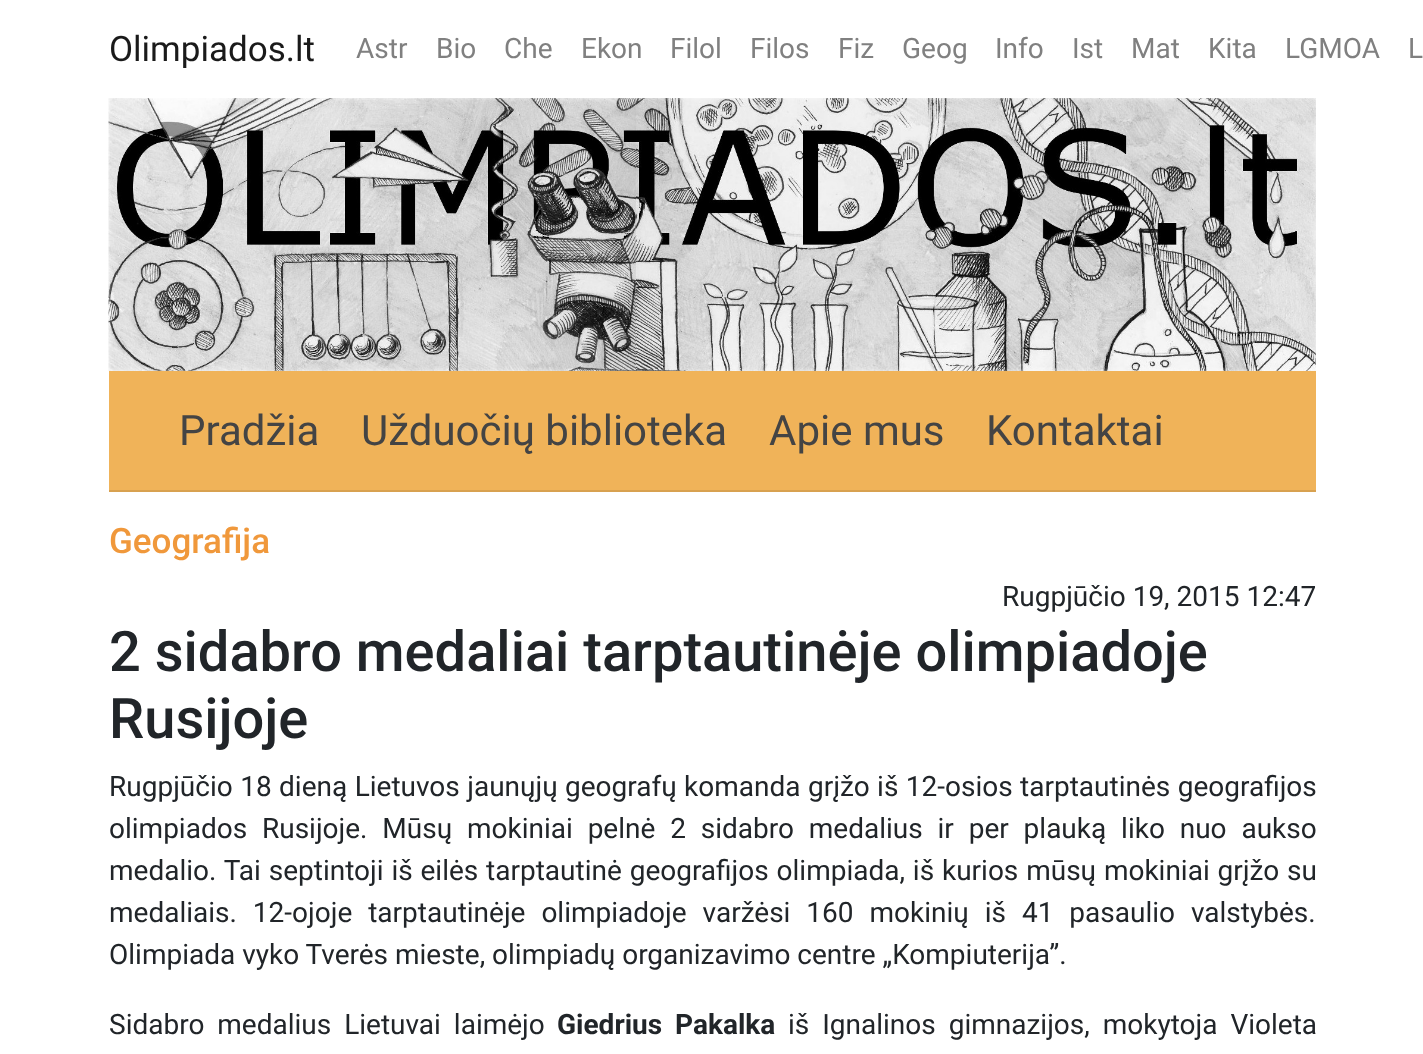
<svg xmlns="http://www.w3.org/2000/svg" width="1423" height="1054">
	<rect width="100%" height="100%" fill="#FFFFFF" />
	<text x="109" y="61" font-family="Roboto" font-size="35" fill="#1A1A1A">Olimpiados.lt</text>
	<g font-family="Roboto" font-size="28" fill="#808080">
		<text x="356" y="58">Astr</text>
		<text x="436" y="58">Bio</text>
		<text x="504" y="58">Che</text>
		<text x="581" y="58">Ekon</text>
		<text x="670" y="58">Filol</text>
		<text x="750" y="58">Filos</text>
		<text x="838" y="58">Fiz</text>
		<text x="902" y="58">Geog</text>
		<text x="995" y="58">Info</text>
		<text x="1072" y="58">Ist</text>
		<text x="1131" y="58">Mat</text>
		<text x="1208" y="58">Kita</text>
		<text x="1285" y="58">LGMOA</text>
		<text x="1408" y="58">L</text>
	</g>
	<rect x="109" y="371" width="1207" height="119" fill="#F0B359" />
	<image x="108" y="98" width="1208" height="273" href="assets/img1.png" />
	<g font-family="Roboto" font-size="42" fill="#444444">
		<text x="179" y="445">Pradžia</text>
		<text x="361" y="445">Užduočių biblioteka</text>
		<text x="769" y="445">Apie mus</text>
		<text x="986" y="445">Kontaktai</text>
	</g>
	<rect x="109" y="490" width="1207" height="2" fill="#D8A150" />
	<text x="109" y="553" font-family="Roboto" font-size="35" font-weight="500" fill="#F0983B">Geografija</text>
	<text x="1002" y="606" font-family="Roboto" font-size="28" fill="#212529">Rugpjūčio 19, 2015 12:47</text>
	<g font-family="Roboto" font-size="56" font-weight="500" fill="#212529">
		<text x="109" y="671">2 sidabro medaliai tarptautinėje olimpiadoje</text>
		<text x="109" y="738">Rusijoje</text>
	</g>
	<g font-family="Roboto" font-size="28" fill="#212529">
		<text x="109" y="796" word-spacing="0.5">Rugpjūčio 18 dieną Lietuvos jaunųjų geografų komanda grįžo iš 12-osios tarptautinės geografijos</text>
		<text x="109" y="838" word-spacing="7.9">olimpiados Rusijoje. Mūsų mokiniai pelnė 2 sidabro medalius ir per plauką liko nuo aukso</text>
		<text x="109" y="880" word-spacing="0.9">medalio. Tai septintoji iš eilės tarptautinė geografijos olimpiada, iš kurios mūsų mokiniai grįžo su</text>
		<text x="109" y="922" word-spacing="9">medaliais. 12-ojoje tarptautinėje olimpiadoje varžėsi 160 mokinių iš 41 pasaulio valstybės.</text>
		<text x="109" y="964">Olimpiada vyko Tverės mieste, olimpiadų organizavimo centre „Kompiuterija”.</text>
		<text x="109" y="1034" word-spacing="6">Sidabro medalius Lietuvai laimėjo</text>
	</g>
	<text x="557" y="1034" word-spacing="6" font-family="Roboto" font-size="28" font-weight="700" fill="#212529">Giedrius Pakalka</text>
	<text x="788" y="1034" word-spacing="6" font-family="Roboto" font-size="28" fill="#212529">iš Ignalinos gimnazijos, mokytoja Violeta</text>
</svg>
